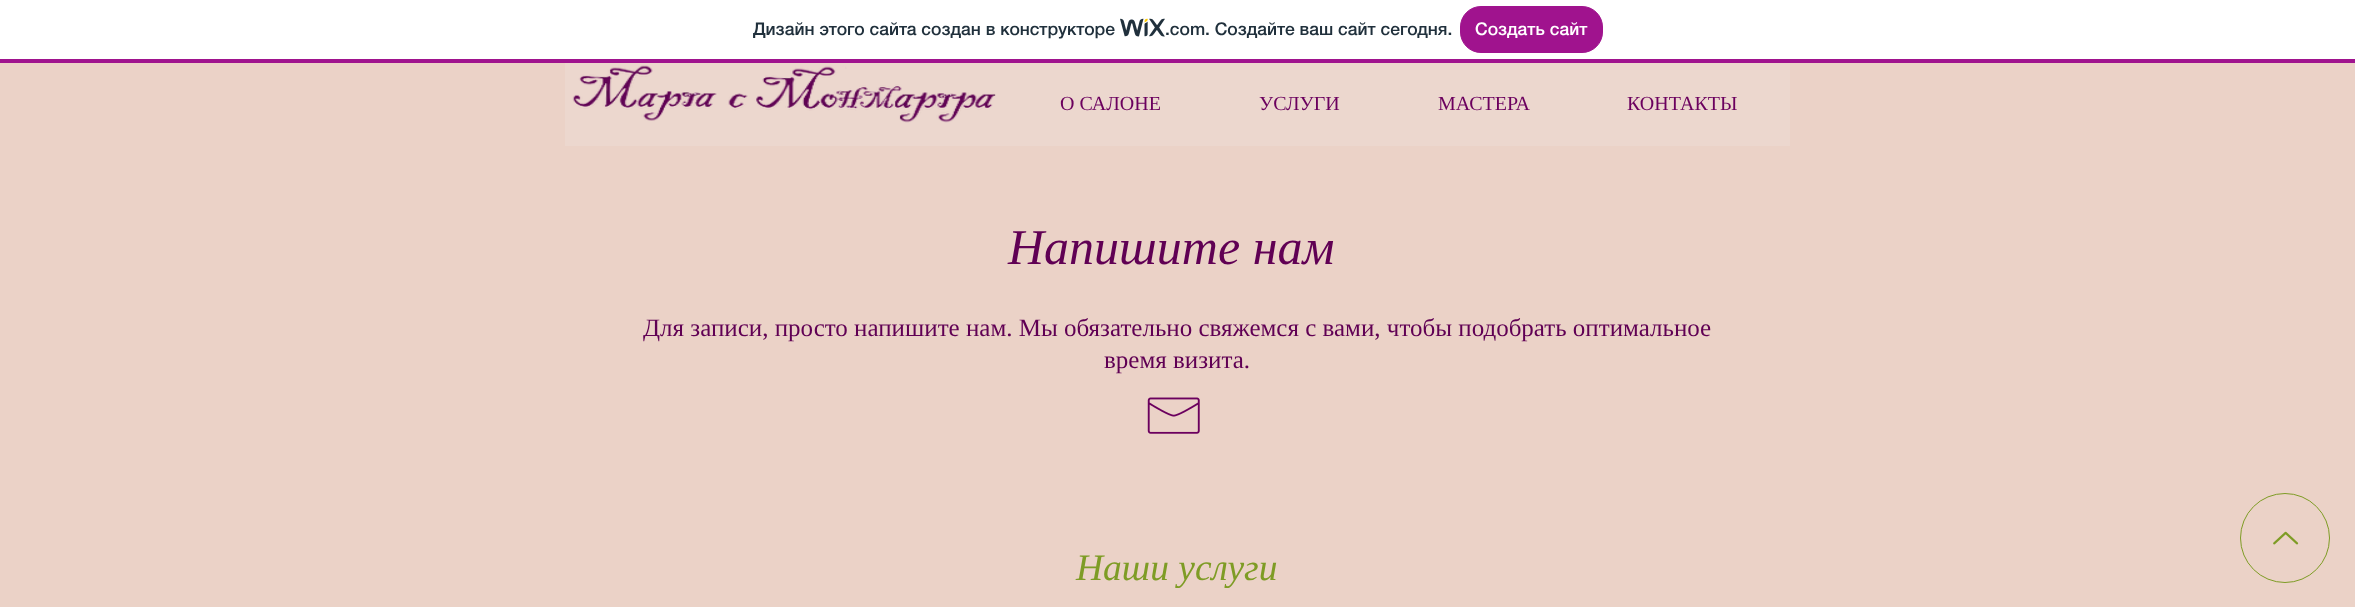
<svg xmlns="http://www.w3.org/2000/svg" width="2355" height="607">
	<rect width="100%" height="100%" fill="#EBD2C7" />
	<rect x="0" y="0" width="2355" height="59" fill="#FFFFFF" />
	<rect x="0" y="59" width="2355" height="4" fill="#A0138E" />
	<text x="753" y="35" font-family="'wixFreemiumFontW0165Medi'" font-size="17.5" font-weight="500" fill="#20303C">Дизайн этого сайта создан в конструкторе</text>
	<image x="1120" y="18" width="45" height="19" href="assets/img1.png" />
	<text x="1165" y="35" font-family="'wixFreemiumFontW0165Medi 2'" font-size="17.5" font-weight="500" fill="#20303C">.com</text>
	<text x="1205" y="35" font-family="'wixFreemiumFontW0165Medi'" font-size="17.5" font-weight="500" fill="#20303C">. Создайте ваш сайт сегодня.</text>
	<rect x="1460.5" y="6.5" width="142" height="46" rx="20.5" fill="#A0138E" stroke="#A0138E" />
	<text x="1475" y="35" font-family="'wixFreemiumFontW0165Medi'" font-size="17.5" font-weight="500" fill="#FFFFFF">Создать сайт</text>
	<rect x="565" y="63" width="1225" height="83" fill="#ECD7CE" />
	<image x="572" y="65" width="424" height="58" href="assets/img2.png" />
	<g font-family="Liberation Serif" font-size="20" fill="#6B005E">
		<text x="1060" y="110">О САЛОНЕ</text>
		<text x="1259" y="110">УСЛУГИ</text>
		<text x="1438" y="110">МАСТЕРА</text>
		<text x="1627" y="110">КОНТАКТЫ</text>
	</g>
	<text x="1008" y="264" font-family="Liberation Serif" font-size="50" font-style="italic" fill="#600054">Напишите нам</text>
	<g font-family="Liberation Serif" font-size="25" fill="#600054">
		<text x="643" y="336">Для записи, просто напишите нам. Мы обязательно свяжемся с вами, чтобы подобрать оптимальное</text>
		<text x="1104" y="368">время визита.</text>
	</g>
	<image x="1147" y="397" width="53" height="37" href="assets/img3.png" />
	<text x="1076" y="580" font-family="Liberation Serif" font-size="37.5" font-style="italic" fill="#7E9C25">Наши услуги</text>
	<circle cx="2285" cy="538" r="44.5" fill="none" stroke="#7E9C25" />
	<image x="2273" y="531" width="26" height="14" href="assets/img4.png" />
</svg>
